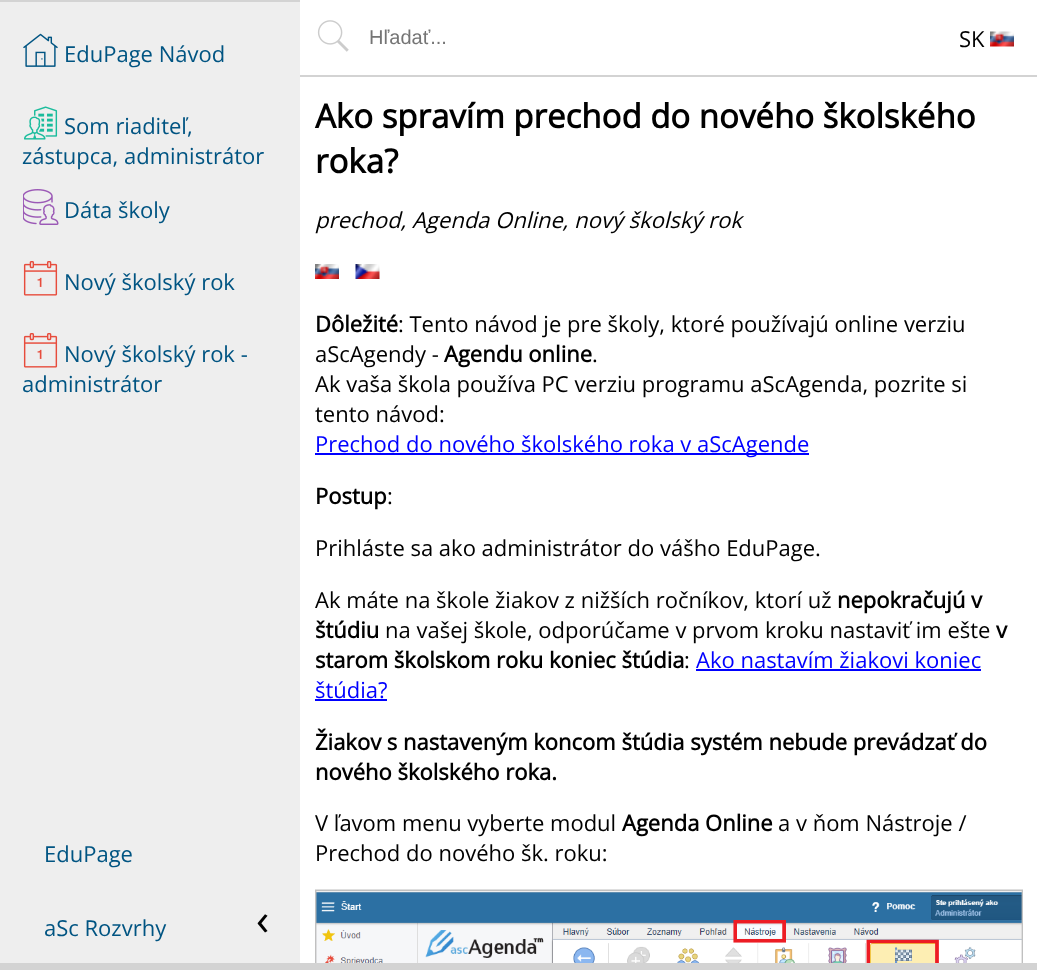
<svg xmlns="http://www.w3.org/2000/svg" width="1037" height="970">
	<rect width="100%" height="100%" fill="#FFFFFF" />
	<rect x="300" y="75" width="737" height="2" fill="#D3D3D3" />
	<image x="317" y="20" width="32" height="32" href="assets/img1.png" />
	<text x="369" y="44" font-family="Liberation Sans" font-size="20" fill="#757575">Hľadať...</text>
	<text x="959" y="47" font-family="Open Sans" font-size="22" fill="#000000">SK</text>
	<image x="990" y="31" width="24" height="16" href="assets/img2.png" />
	<rect x="0" y="2" width="300" height="961" fill="#EEEEEE" />
	<rect x="0" y="0" width="300" height="2" fill="#D3D3D3" />
	<image x="23" y="33" width="35" height="34" href="assets/img3.png" />
	<text x="64" y="62" font-family="Open Sans" font-size="22" fill="#005482">EduPage Návod</text>
	<image x="24" y="106" width="34" height="34" href="assets/img4.png" />
	<g font-family="Open Sans" font-size="22" fill="#005482">
		<text x="64" y="134">Som riaditeľ,</text>
		<text x="22" y="164">zástupca, administrátor</text>
	</g>
	<image x="23" y="189" width="36" height="36" href="assets/img5.png" />
	<text x="64" y="218" font-family="Open Sans" font-size="22" fill="#005482">Dáta školy</text>
	<image x="23" y="261" width="35" height="35" href="assets/img6.png" />
	<text x="64" y="290" font-family="Open Sans" font-size="22" fill="#005482">Nový školský rok</text>
	<image x="23" y="333" width="35" height="35" href="assets/img6.png" />
	<g font-family="Open Sans" font-size="22" fill="#005482">
		<text x="64" y="362">Nový školský rok -</text>
		<text x="22" y="392">administrátor</text>
		<text x="44" y="862">EduPage</text>
		<text x="44" y="936">aSc Rozvrhy</text>
	</g>
	<text x="256" y="935" font-family="Open Sans" font-size="44" fill="#000000">‹</text>
	<g font-family="Open Sans" font-size="33" font-weight="700" fill="#000000">
		<text x="315" y="128">Ako spravím prechod do nového školského</text>
		<text x="315" y="173">roka?</text>
	</g>
	<text x="315" y="228" font-family="Open Sans" font-size="22" font-style="italic" fill="#000000">prechod, Agenda Online, nový školský rok</text>
	<image x="315" y="264" width="24" height="15" href="assets/img7.png" />
	<image x="355" y="264" width="25" height="15" href="assets/img8.png" />
	<text x="315" y="332" font-family="Open Sans" font-size="22" font-weight="700" fill="#000000">Dôležité</text>
	<g font-family="Open Sans" font-size="22" fill="#000000">
		<text x="398" y="332">: Tento návod je pre školy, ktoré používajú online verziu</text>
		<text x="315" y="362">aScAgendy -</text>
	</g>
	<text x="444" y="362" font-family="Open Sans" font-size="22" font-weight="700" fill="#000000">Agendu online</text>
	<g font-family="Open Sans" font-size="22" fill="#000000">
		<text x="592" y="362">.</text>
		<text x="315" y="392">Ak vaša škola používa PC verziu programu aScAgenda, pozrite si</text>
		<text x="315" y="422">tento návod:</text>
	</g>
	<rect x="315" y="453" width="494" height="2" fill="#0000FF" />
	<text x="315" y="452" font-family="Open Sans" font-size="22" fill="#0000FF">Prechod do nového školského roka v aScAgende</text>
	<text x="315" y="504" font-family="Open Sans" font-size="22" font-weight="700" fill="#000000">Postup</text>
	<g font-family="Open Sans" font-size="22" fill="#000000">
		<text x="387" y="504">:</text>
		<text x="315" y="556">Prihláste sa ako administrátor do vášho EduPage.</text>
		<text x="315" y="608">Ak máte na škole žiakov z nižších ročníkov, ktorí už</text>
	</g>
	<g font-family="Open Sans" font-size="22" font-weight="700" fill="#000000">
		<text x="837" y="608">nepokračujú v</text>
		<text x="315" y="638">štúdiu</text>
	</g>
	<text x="385" y="638" font-family="Open Sans" font-size="22" fill="#000000">na vašej škole, odporúčame v prvom kroku nastaviť im ešte</text>
	<g font-family="Open Sans" font-size="22" font-weight="700" fill="#000000">
		<text x="996" y="638">v</text>
		<text x="315" y="668">starom školskom roku koniec štúdia</text>
	</g>
	<text x="684" y="668" font-family="Open Sans" font-size="22" fill="#000000">:</text>
	<text x="696" y="668" font-family="Open Sans" font-size="22" fill="#0000FF">Ako nastavím žiakovi koniec</text>
	<rect x="696" y="669" width="285" height="2" fill="#0000FF" />
	<text x="315" y="698" font-family="Open Sans" font-size="22" fill="#0000FF">štúdia?</text>
	<rect x="315" y="699" width="72" height="2" fill="#0000FF" />
	<g font-family="Open Sans" font-size="22" font-weight="700" fill="#000000">
		<text x="315" y="750">Žiakov s nastaveným koncom štúdia systém nebude prevádzať do</text>
		<text x="315" y="780">nového školského roka.</text>
	</g>
	<text x="315" y="831" font-family="Open Sans" font-size="22" fill="#000000">V ľavom menu vyberte modul</text>
	<text x="622" y="831" font-family="Open Sans" font-size="22" font-weight="700" fill="#000000">Agenda Online</text>
	<g font-family="Open Sans" font-size="22" fill="#000000">
		<text x="778" y="831">a v ňom Nástroje /</text>
		<text x="315" y="861">Prechod do nového šk. roku:</text>
	</g>
	<image x="315" y="889" width="708" height="74" href="assets/img9.png" />
	<rect x="0" y="963" width="1037" height="7" fill="#D3D3D3" />
</svg>
